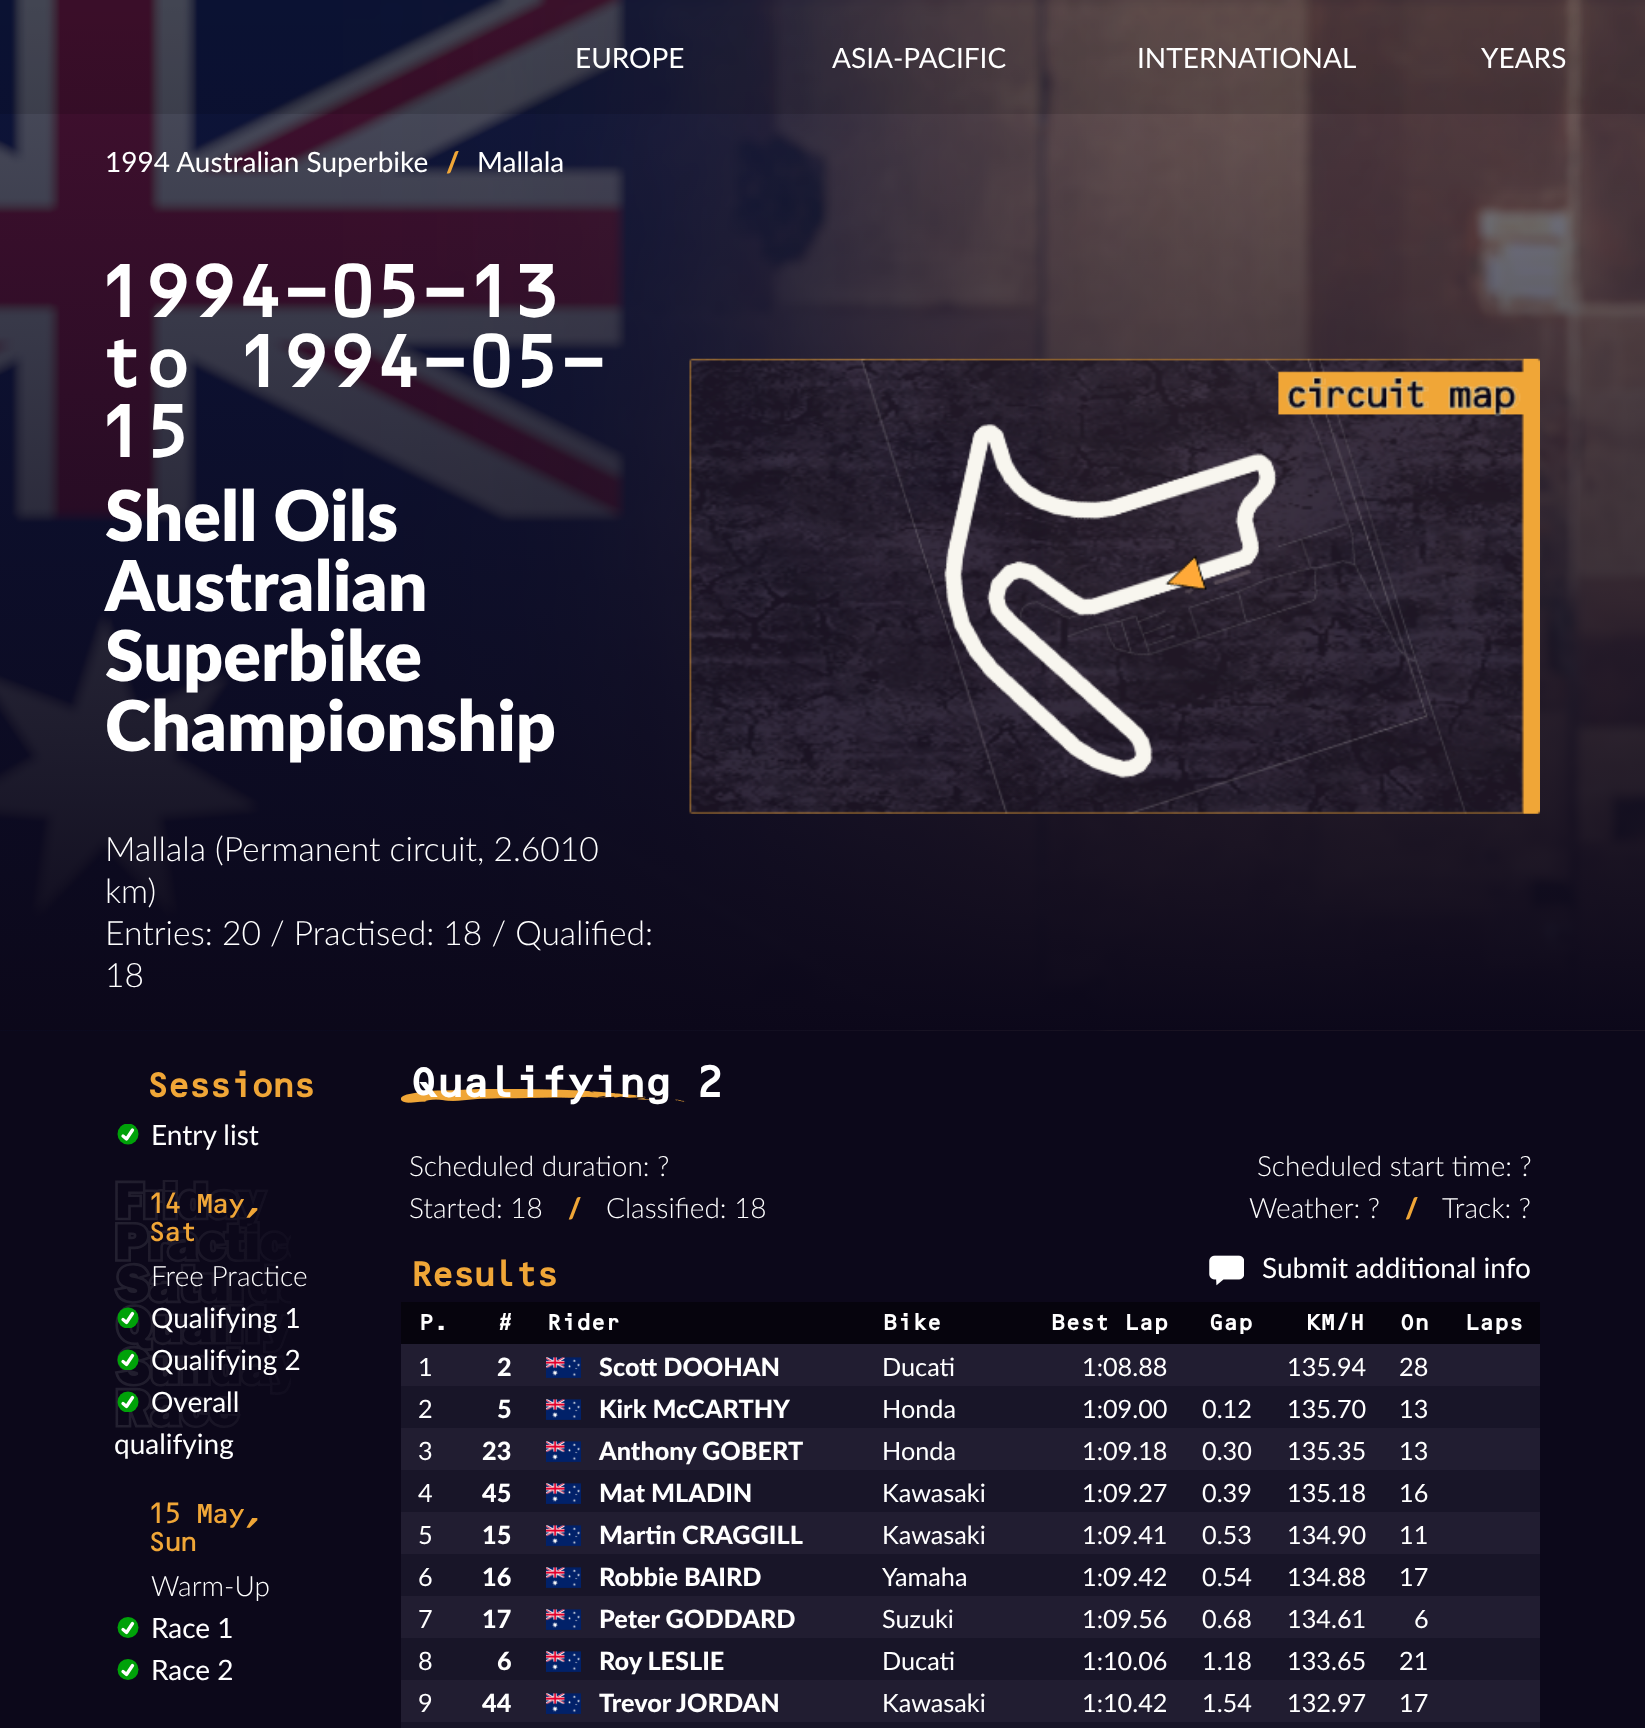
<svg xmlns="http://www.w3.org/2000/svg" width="1645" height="1728">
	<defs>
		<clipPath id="clip1"><rect x="114" y="1124" width="28" height="21" /></clipPath>
		<clipPath id="clip2"><rect x="114" y="1307" width="28" height="21" /></clipPath>
		<clipPath id="clip3"><rect x="114" y="1349" width="28" height="21" /></clipPath>
		<clipPath id="clip4"><rect x="114" y="1391" width="28" height="21" /></clipPath>
	</defs>
	<rect width="100%" height="100%" fill="#0C081A" />
	<image x="0" y="0" width="1645" height="1031" href="assets/img1.png" />
	<rect x="0" y="0" width="1645" height="114" fill="#000000" fill-opacity="0.12" />
	<g font-family="Lato" font-size="28" fill="#FFFFFF">
		<text x="575" y="68">EUROPE</text>
		<text x="832" y="68">ASIA-PACIFIC</text>
		<text x="1137" y="68">INTERNATIONAL</text>
		<text x="1481" y="68">YEARS</text>
		<text x="105" y="172">1994 Australian Superbike</text>
	</g>
	<text x="446" y="172" font-family="Lato" font-size="28" font-weight="900" fill="#F0A637">/</text>
	<text x="477" y="172" font-family="Lato" font-size="28" fill="#FFFFFF">Mallala</text>
	<g font-family="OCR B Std" font-size="70" font-weight="700" letter-spacing="-4.25" fill="#FFFFFF">
		<text x="96" y="317">1994-05-13</text>
		<text x="96" y="387">to 1994-05-</text>
		<text x="96" y="457">15</text>
	</g>
	<g font-family="Lato" font-size="70" font-weight="900" fill="#FFFFFF">
		<text x="105" y="541">Shell Oils</text>
		<text x="105" y="611">Australian</text>
		<text x="105" y="681">Superbike</text>
		<text x="105" y="751">Championship</text>
	</g>
	<g font-family="Lato" font-size="33.6" font-weight="300" fill="#FFFFFF">
		<text x="105" y="861">Mallala (Permanent circuit, 2.6010</text>
		<text x="105" y="903">km)</text>
		<text x="105" y="945">Entries: 20 / Practised: 18 / Qualified:</text>
		<text x="105" y="987">18</text>
	</g>
	<image x="689" y="358" width="851" height="456" href="assets/img2.png" />
	<image x="114" y="1180" width="177" height="248" href="assets/img3.png" />
	<text x="145" y="1097" font-family="OCR B Std" font-size="35" font-weight="700" letter-spacing="-4.25" fill="#F0A637">Sessions</text>
	<g clip-path="url(#clip1)">
		<circle cx="128" cy="1134" r="10.5" fill="#00A209" />
	</g>
	<path d="M123 1136L126.5 1139L132.5 1130" fill="none" stroke="#FFFFFF" stroke-width="3.3" stroke-linecap="round" stroke-linejoin="round" />
	<text x="151" y="1145" font-family="Lato" font-size="28" fill="#FFFFFF">Entry list</text>
	<g font-family="OCR B Std" font-size="28" letter-spacing="-4.25" fill="#F0A637">
		<text x="147" y="1213">14 May,</text>
		<text x="147" y="1241">Sat</text>
	</g>
	<text x="151" y="1286" font-family="Lato" font-size="28" font-weight="300" fill="#FFFFFF">Free Practice</text>
	<g clip-path="url(#clip2)">
		<circle cx="128" cy="1318" r="10.5" fill="#00A209" />
	</g>
	<path d="M123 1319.5L126.5 1322.5L132.5 1313.5" fill="none" stroke="#FFFFFF" stroke-width="3.3" stroke-linecap="round" stroke-linejoin="round" />
	<text x="151" y="1328" font-family="Lato" font-size="28" fill="#FFFFFF">Qualifying 1</text>
	<g clip-path="url(#clip3)">
		<circle cx="128" cy="1360" r="10.5" fill="#00A209" />
	</g>
	<path d="M123 1361.5L126.5 1364.5L132.5 1355.5" fill="none" stroke="#FFFFFF" stroke-width="3.3" stroke-linecap="round" stroke-linejoin="round" />
	<text x="151" y="1370" font-family="Lato" font-size="28" fill="#FFFFFF">Qualifying 2</text>
	<g clip-path="url(#clip4)">
		<circle cx="128" cy="1402" r="10.5" fill="#00A209" />
	</g>
	<path d="M123 1403.5L126.5 1406.5L132.5 1397.5" fill="none" stroke="#FFFFFF" stroke-width="3.3" stroke-linecap="round" stroke-linejoin="round" />
	<g font-family="Lato" font-size="28" fill="#FFFFFF">
		<text x="151" y="1412">Overall</text>
		<text x="114" y="1454">qualifying</text>
	</g>
	<g font-family="OCR B Std" font-size="28" letter-spacing="-4.25" fill="#F0A637">
		<text x="147" y="1523">15 May,</text>
		<text x="147" y="1551">Sun</text>
	</g>
	<text x="151" y="1596" font-family="Lato" font-size="28" font-weight="300" fill="#FFFFFF">Warm-Up</text>
	<circle cx="128" cy="1627.5" r="10.5" fill="#00A209" />
	<path d="M123 1629.5L126.5 1632.5L132.5 1623.5" fill="none" stroke="#FFFFFF" stroke-width="3.3" stroke-linecap="round" stroke-linejoin="round" />
	<text x="151" y="1638" font-family="Lato" font-size="28" fill="#FFFFFF">Race 1</text>
	<circle cx="128" cy="1669.5" r="10.5" fill="#00A209" />
	<path d="M123 1671.5L126.5 1674.5L132.5 1665.5" fill="none" stroke="#FFFFFF" stroke-width="3.3" stroke-linecap="round" stroke-linejoin="round" />
	<text x="151" y="1680" font-family="Lato" font-size="28" fill="#FFFFFF">Race 2</text>
	<image x="401" y="1089" width="285" height="14" href="assets/img4.png" />
	<text x="409" y="1097" font-family="OCR B Std" font-size="42" font-weight="700" letter-spacing="-4.25" fill="#FFFFFF">Qualifying 2</text>
	<g font-family="Lato" font-size="28" font-weight="300" fill="#FFFFFF">
		<text x="409" y="1176">Scheduled duration: ?</text>
		<text x="409" y="1218">Started: 18</text>
	</g>
	<text x="568" y="1218" font-family="Lato" font-size="28" font-weight="900" fill="#F0A637">/</text>
	<g font-family="Lato" font-size="28" font-weight="300" fill="#FFFFFF">
		<text x="606" y="1218">Classified: 18</text>
		<text x="1257" y="1176">Scheduled start time: ?</text>
		<text x="1249" y="1218">Weather: ?</text>
	</g>
	<text x="1405" y="1218" font-family="Lato" font-size="28" font-weight="900" fill="#F0A637">/</text>
	<text x="1442" y="1218" font-family="Lato" font-size="28" font-weight="300" fill="#FFFFFF">Track: ?</text>
	<text x="409" y="1286" font-family="OCR B Std" font-size="35" font-weight="700" letter-spacing="-4.25" fill="#F0A637">Results</text>
	<image x="1209" y="1255" width="35" height="31" href="assets/img5.png" />
	<text x="1262" y="1278" font-family="Lato" font-size="28" fill="#FFFFFF">Submit additional info</text>
	<rect x="401" y="1302" width="784" height="42" fill="#06040D" />
	<g font-family="OCR B Std" font-size="22.5" font-weight="700" letter-spacing="-1.5" fill="#FFFFFF">
		<text x="418" y="1330">P.</text>
		<text x="497" y="1330">#</text>
		<text x="546" y="1330">Rider</text>
		<text x="882" y="1330">Bike</text>
		<text x="1050" y="1330">Best Lap</text>
	</g>
	<rect x="1185" y="1302" width="355" height="42" fill="#06040D" />
	<g font-family="OCR B Std" font-size="22.5" font-weight="700" letter-spacing="-1.5" fill="#FFFFFF">
		<text x="1208" y="1330">Gap</text>
		<text x="1305" y="1330">KM/H</text>
		<text x="1399" y="1330">On</text>
		<text x="1464" y="1330">Laps</text>
	</g>
	<rect x="401" y="1344" width="1139" height="42" fill="#211D31" />
	<text x="418" y="1376" font-family="Lato" font-size="25.25" fill="#FFFFFF">1</text>
	<text x="497" y="1376" font-family="'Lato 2'" font-size="25.25" font-weight="900" fill="#FFFFFF">2</text>
	<image x="546" y="1357" width="35" height="21" href="assets/img6.png" />
	<text x="599" y="1376" font-family="'Lato 2'" font-size="25.25" font-weight="900" fill="#FFFFFF">Scott DOOHAN</text>
	<g font-family="Lato" font-size="25.25" fill="#FFFFFF">
		<text x="882" y="1376">Ducati</text>
		<text x="1082" y="1376">1:08.88</text>
		<text x="1287" y="1376">135.94</text>
		<text x="1399" y="1376">28</text>
	</g>
	<rect x="401" y="1386" width="1139" height="42" fill="#181528" />
	<text x="418" y="1418" font-family="Lato" font-size="25.25" fill="#FFFFFF">2</text>
	<text x="497" y="1418" font-family="'Lato 2'" font-size="25.25" font-weight="900" fill="#FFFFFF">5</text>
	<image x="546" y="1399" width="35" height="21" href="assets/img7.png" />
	<text x="599" y="1418" font-family="'Lato 2'" font-size="25.25" font-weight="900" fill="#FFFFFF">Kirk McCARTHY</text>
	<g font-family="Lato" font-size="25.25" fill="#FFFFFF">
		<text x="882" y="1418">Honda</text>
		<text x="1082" y="1418">1:09.00</text>
		<text x="1202" y="1418">0.12</text>
		<text x="1287" y="1418">135.70</text>
		<text x="1399" y="1418">13</text>
	</g>
	<rect x="401" y="1428" width="1139" height="42" fill="#211D31" />
	<text x="418" y="1460" font-family="Lato" font-size="25.25" fill="#FFFFFF">3</text>
	<text x="482" y="1460" font-family="'Lato 2'" font-size="25.25" font-weight="900" fill="#FFFFFF">23</text>
	<image x="546" y="1441" width="35" height="21" href="assets/img6.png" />
	<text x="599" y="1460" font-family="'Lato 2'" font-size="25.25" font-weight="900" fill="#FFFFFF">Anthony GOBERT</text>
	<g font-family="Lato" font-size="25.25" fill="#FFFFFF">
		<text x="882" y="1460">Honda</text>
		<text x="1082" y="1460">1:09.18</text>
		<text x="1202" y="1460">0.30</text>
		<text x="1287" y="1460">135.35</text>
		<text x="1399" y="1460">13</text>
	</g>
	<rect x="401" y="1470" width="1139" height="42" fill="#181528" />
	<text x="418" y="1502" font-family="Lato" font-size="25.25" fill="#FFFFFF">4</text>
	<text x="482" y="1502" font-family="'Lato 2'" font-size="25.25" font-weight="900" fill="#FFFFFF">45</text>
	<image x="546" y="1483" width="35" height="21" href="assets/img7.png" />
	<text x="599" y="1502" font-family="'Lato 2'" font-size="25.25" font-weight="900" fill="#FFFFFF">Mat MLADIN</text>
	<g font-family="Lato" font-size="25.25" fill="#FFFFFF">
		<text x="882" y="1502">Kawasaki</text>
		<text x="1082" y="1502">1:09.27</text>
		<text x="1202" y="1502">0.39</text>
		<text x="1287" y="1502">135.18</text>
		<text x="1399" y="1502">16</text>
	</g>
	<rect x="401" y="1512" width="1139" height="42" fill="#211D31" />
	<text x="418" y="1544" font-family="Lato" font-size="25.25" fill="#FFFFFF">5</text>
	<text x="482" y="1544" font-family="'Lato 2'" font-size="25.25" font-weight="900" fill="#FFFFFF">15</text>
	<image x="546" y="1525" width="35" height="21" href="assets/img6.png" />
	<text x="599" y="1544" font-family="'Lato 2'" font-size="25.25" font-weight="900" fill="#FFFFFF">Martin CRAGGILL</text>
	<g font-family="Lato" font-size="25.25" fill="#FFFFFF">
		<text x="882" y="1544">Kawasaki</text>
		<text x="1082" y="1544">1:09.41</text>
		<text x="1202" y="1544">0.53</text>
		<text x="1287" y="1544">134.90</text>
		<text x="1399" y="1544">11</text>
	</g>
	<rect x="401" y="1554" width="1139" height="42" fill="#181528" />
	<text x="418" y="1586" font-family="Lato" font-size="25.25" fill="#FFFFFF">6</text>
	<text x="482" y="1586" font-family="'Lato 2'" font-size="25.25" font-weight="900" fill="#FFFFFF">16</text>
	<image x="546" y="1567" width="35" height="21" href="assets/img7.png" />
	<text x="599" y="1586" font-family="'Lato 2'" font-size="25.25" font-weight="900" fill="#FFFFFF">Robbie BAIRD</text>
	<g font-family="Lato" font-size="25.25" fill="#FFFFFF">
		<text x="882" y="1586">Yamaha</text>
		<text x="1082" y="1586">1:09.42</text>
		<text x="1202" y="1586">0.54</text>
		<text x="1287" y="1586">134.88</text>
		<text x="1399" y="1586">17</text>
	</g>
	<rect x="401" y="1596" width="1139" height="42" fill="#211D31" />
	<text x="418" y="1628" font-family="Lato" font-size="25.25" fill="#FFFFFF">7</text>
	<text x="482" y="1628" font-family="'Lato 2'" font-size="25.25" font-weight="900" fill="#FFFFFF">17</text>
	<image x="546" y="1609" width="35" height="21" href="assets/img6.png" />
	<text x="599" y="1628" font-family="'Lato 2'" font-size="25.25" font-weight="900" fill="#FFFFFF">Peter GODDARD</text>
	<g font-family="Lato" font-size="25.25" fill="#FFFFFF">
		<text x="882" y="1628">Suzuki</text>
		<text x="1082" y="1628">1:09.56</text>
		<text x="1202" y="1628">0.68</text>
		<text x="1287" y="1628">134.61</text>
		<text x="1414" y="1628">6</text>
	</g>
	<rect x="401" y="1638" width="1139" height="42" fill="#181528" />
	<text x="418" y="1670" font-family="Lato" font-size="25.25" fill="#FFFFFF">8</text>
	<text x="497" y="1670" font-family="'Lato 2'" font-size="25.25" font-weight="900" fill="#FFFFFF">6</text>
	<image x="546" y="1651" width="35" height="21" href="assets/img7.png" />
	<text x="599" y="1670" font-family="'Lato 2'" font-size="25.25" font-weight="900" fill="#FFFFFF">Roy LESLIE</text>
	<g font-family="Lato" font-size="25.25" fill="#FFFFFF">
		<text x="882" y="1670">Ducati</text>
		<text x="1082" y="1670">1:10.06</text>
		<text x="1202" y="1670">1.18</text>
		<text x="1287" y="1670">133.65</text>
		<text x="1399" y="1670">21</text>
	</g>
	<rect x="401" y="1680" width="1139" height="42" fill="#211D31" />
	<text x="418" y="1712" font-family="Lato" font-size="25.25" fill="#FFFFFF">9</text>
	<text x="482" y="1712" font-family="'Lato 2'" font-size="25.25" font-weight="900" fill="#FFFFFF">44</text>
	<image x="546" y="1693" width="35" height="21" href="assets/img6.png" />
	<text x="599" y="1712" font-family="'Lato 2'" font-size="25.25" font-weight="900" fill="#FFFFFF">Trevor JORDAN</text>
	<g font-family="Lato" font-size="25.25" fill="#FFFFFF">
		<text x="882" y="1712">Kawasaki</text>
		<text x="1082" y="1712">1:10.42</text>
		<text x="1202" y="1712">1.54</text>
		<text x="1287" y="1712">132.97</text>
		<text x="1399" y="1712">17</text>
	</g>
	<rect x="401" y="1722" width="1139" height="6" fill="#181528" />
</svg>
